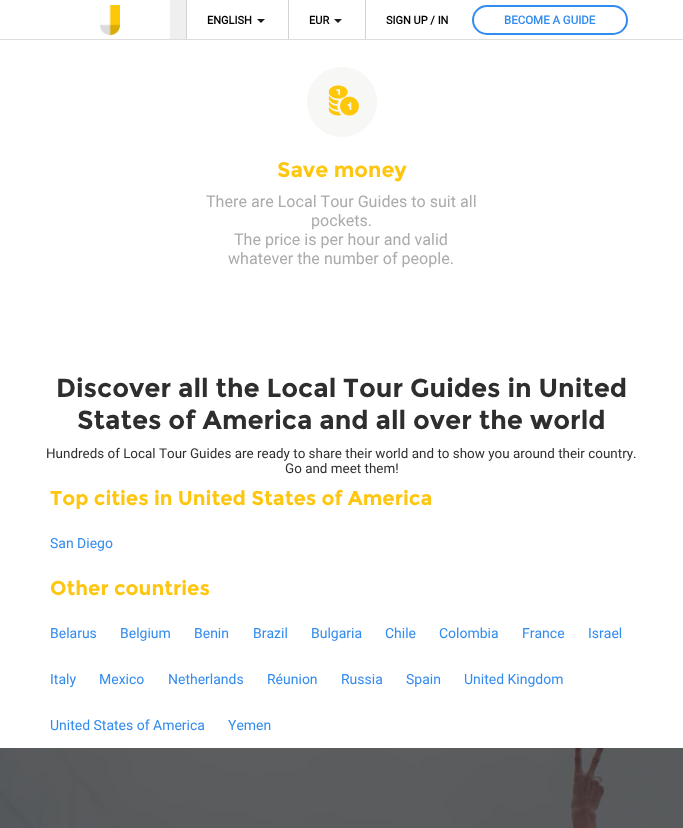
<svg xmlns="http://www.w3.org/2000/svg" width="683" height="828">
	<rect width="100%" height="100%" fill="#FFFFFF" />
	<rect x="0" y="39" width="683" height="1" fill="#DDDDDD" />
	<image x="100" y="5" width="20" height="30" href="assets/img1.png" />
	<rect x="170" y="0" width="16" height="39" fill="#EFEFEF" />
	<rect x="186" y="0" width="1" height="39" fill="#D3D3D3" />
	<text x="207" y="24" font-family="Roboto" font-size="11" font-weight="700" fill="#000000">ENGLISH</text>
	<image x="257" y="19" width="8" height="4" href="assets/img2.png" />
	<rect x="288" y="0" width="1" height="39" fill="#D3D3D3" />
	<text x="309" y="24" font-family="Roboto" font-size="11" font-weight="700" fill="#000000">EUR</text>
	<image x="334" y="19" width="8" height="4" href="assets/img2.png" />
	<rect x="365" y="0" width="1" height="39" fill="#D3D3D3" />
	<text x="386" y="24" font-family="Roboto" font-size="11" font-weight="700" fill="#000000">SIGN UP / IN</text>
	<rect x="473" y="6" width="154" height="28" rx="14" fill="none" stroke="#328BEE" stroke-width="2" />
	<text x="504" y="24" font-family="Roboto" font-size="11.5" font-weight="700" fill="#328BEE">BECOME A GUIDE</text>
	<image x="307" y="67" width="70" height="70" href="assets/img3.png" />
	<text x="277" y="177" font-family="Montserrat" font-size="21" font-weight="700" fill="#FEC60F">Save money</text>
	<g font-family="Roboto" font-size="16.1" fill="#ABABAB">
		<text x="206" y="207">There are Local Tour Guides to suit all</text>
		<text x="311" y="226">pockets.</text>
		<text x="234" y="245">The price is per hour and valid</text>
		<text x="228" y="264">whatever the number of people.</text>
	</g>
	<g font-family="Montserrat" font-size="26" font-weight="700" fill="#2E2E2E">
		<text x="56" y="397">Discover all the Local Tour Guides in United</text>
		<text x="77" y="429">States of America and all over the world</text>
	</g>
	<g font-family="Roboto" font-size="13.45" fill="#2E2E2E">
		<text x="46" y="458">Hundreds of Local Tour Guides are ready to share their world and to show you around their country.</text>
		<text x="285" y="473">Go and meet them!</text>
	</g>
	<text x="50" y="505" font-family="Montserrat" font-size="20" font-weight="700" fill="#FEC60F">Top cities in United States of America</text>
	<text x="50" y="548" font-family="Roboto" font-size="14" fill="#328BEE">San Diego</text>
	<text x="50" y="595" font-family="Montserrat" font-size="20" font-weight="700" fill="#FEC60F">Other countries</text>
	<g font-family="Roboto" font-size="14" fill="#328BEE">
		<text x="50" y="638">Belarus</text>
		<text x="120" y="638">Belgium</text>
		<text x="194" y="638">Benin</text>
		<text x="253" y="638">Brazil</text>
		<text x="311" y="638">Bulgaria</text>
		<text x="385" y="638">Chile</text>
		<text x="439" y="638">Colombia</text>
		<text x="522" y="638">France</text>
		<text x="588" y="638">Israel</text>
		<text x="50" y="684">Italy</text>
		<text x="99" y="684">Mexico</text>
		<text x="168" y="684">Netherlands</text>
		<text x="267" y="684">Réunion</text>
		<text x="341" y="684">Russia</text>
		<text x="406" y="684">Spain</text>
		<text x="464" y="684">United Kingdom</text>
		<text x="50" y="730">United States of America</text>
		<text x="228" y="730">Yemen</text>
	</g>
	<image x="0" y="748" width="683" height="80" href="assets/img4.png" />
</svg>
